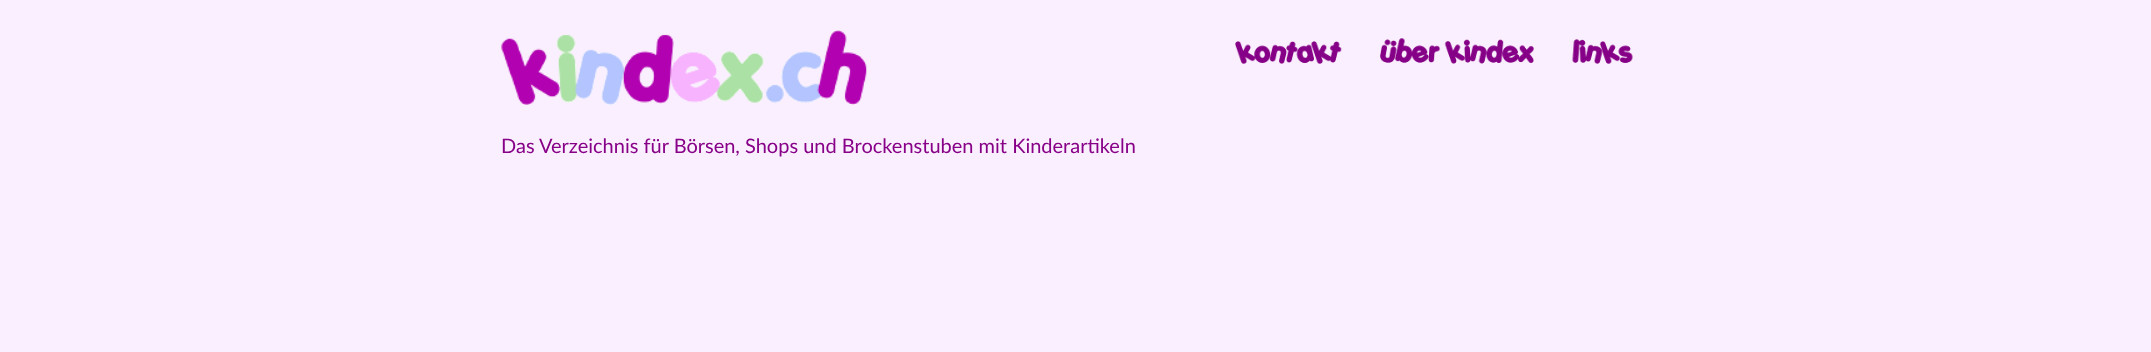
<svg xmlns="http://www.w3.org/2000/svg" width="2151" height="352">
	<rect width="100%" height="100%" fill="#F9EFFE" />
	<image x="501" y="30" width="366" height="75" href="assets/img1.png" />
	<image x="1235" y="41" width="107" height="23" href="assets/img2.png" />
	<image x="1380" y="38" width="154" height="26" href="assets/img3.png" />
	<image x="1572" y="39" width="61" height="25" href="assets/img4.png" />
	<text x="501" y="153" font-family="Lato" font-size="20" fill="#870087">Das Verzeichnis für Börsen, Shops und Brockenstuben mit Kinderartikeln</text>
</svg>
